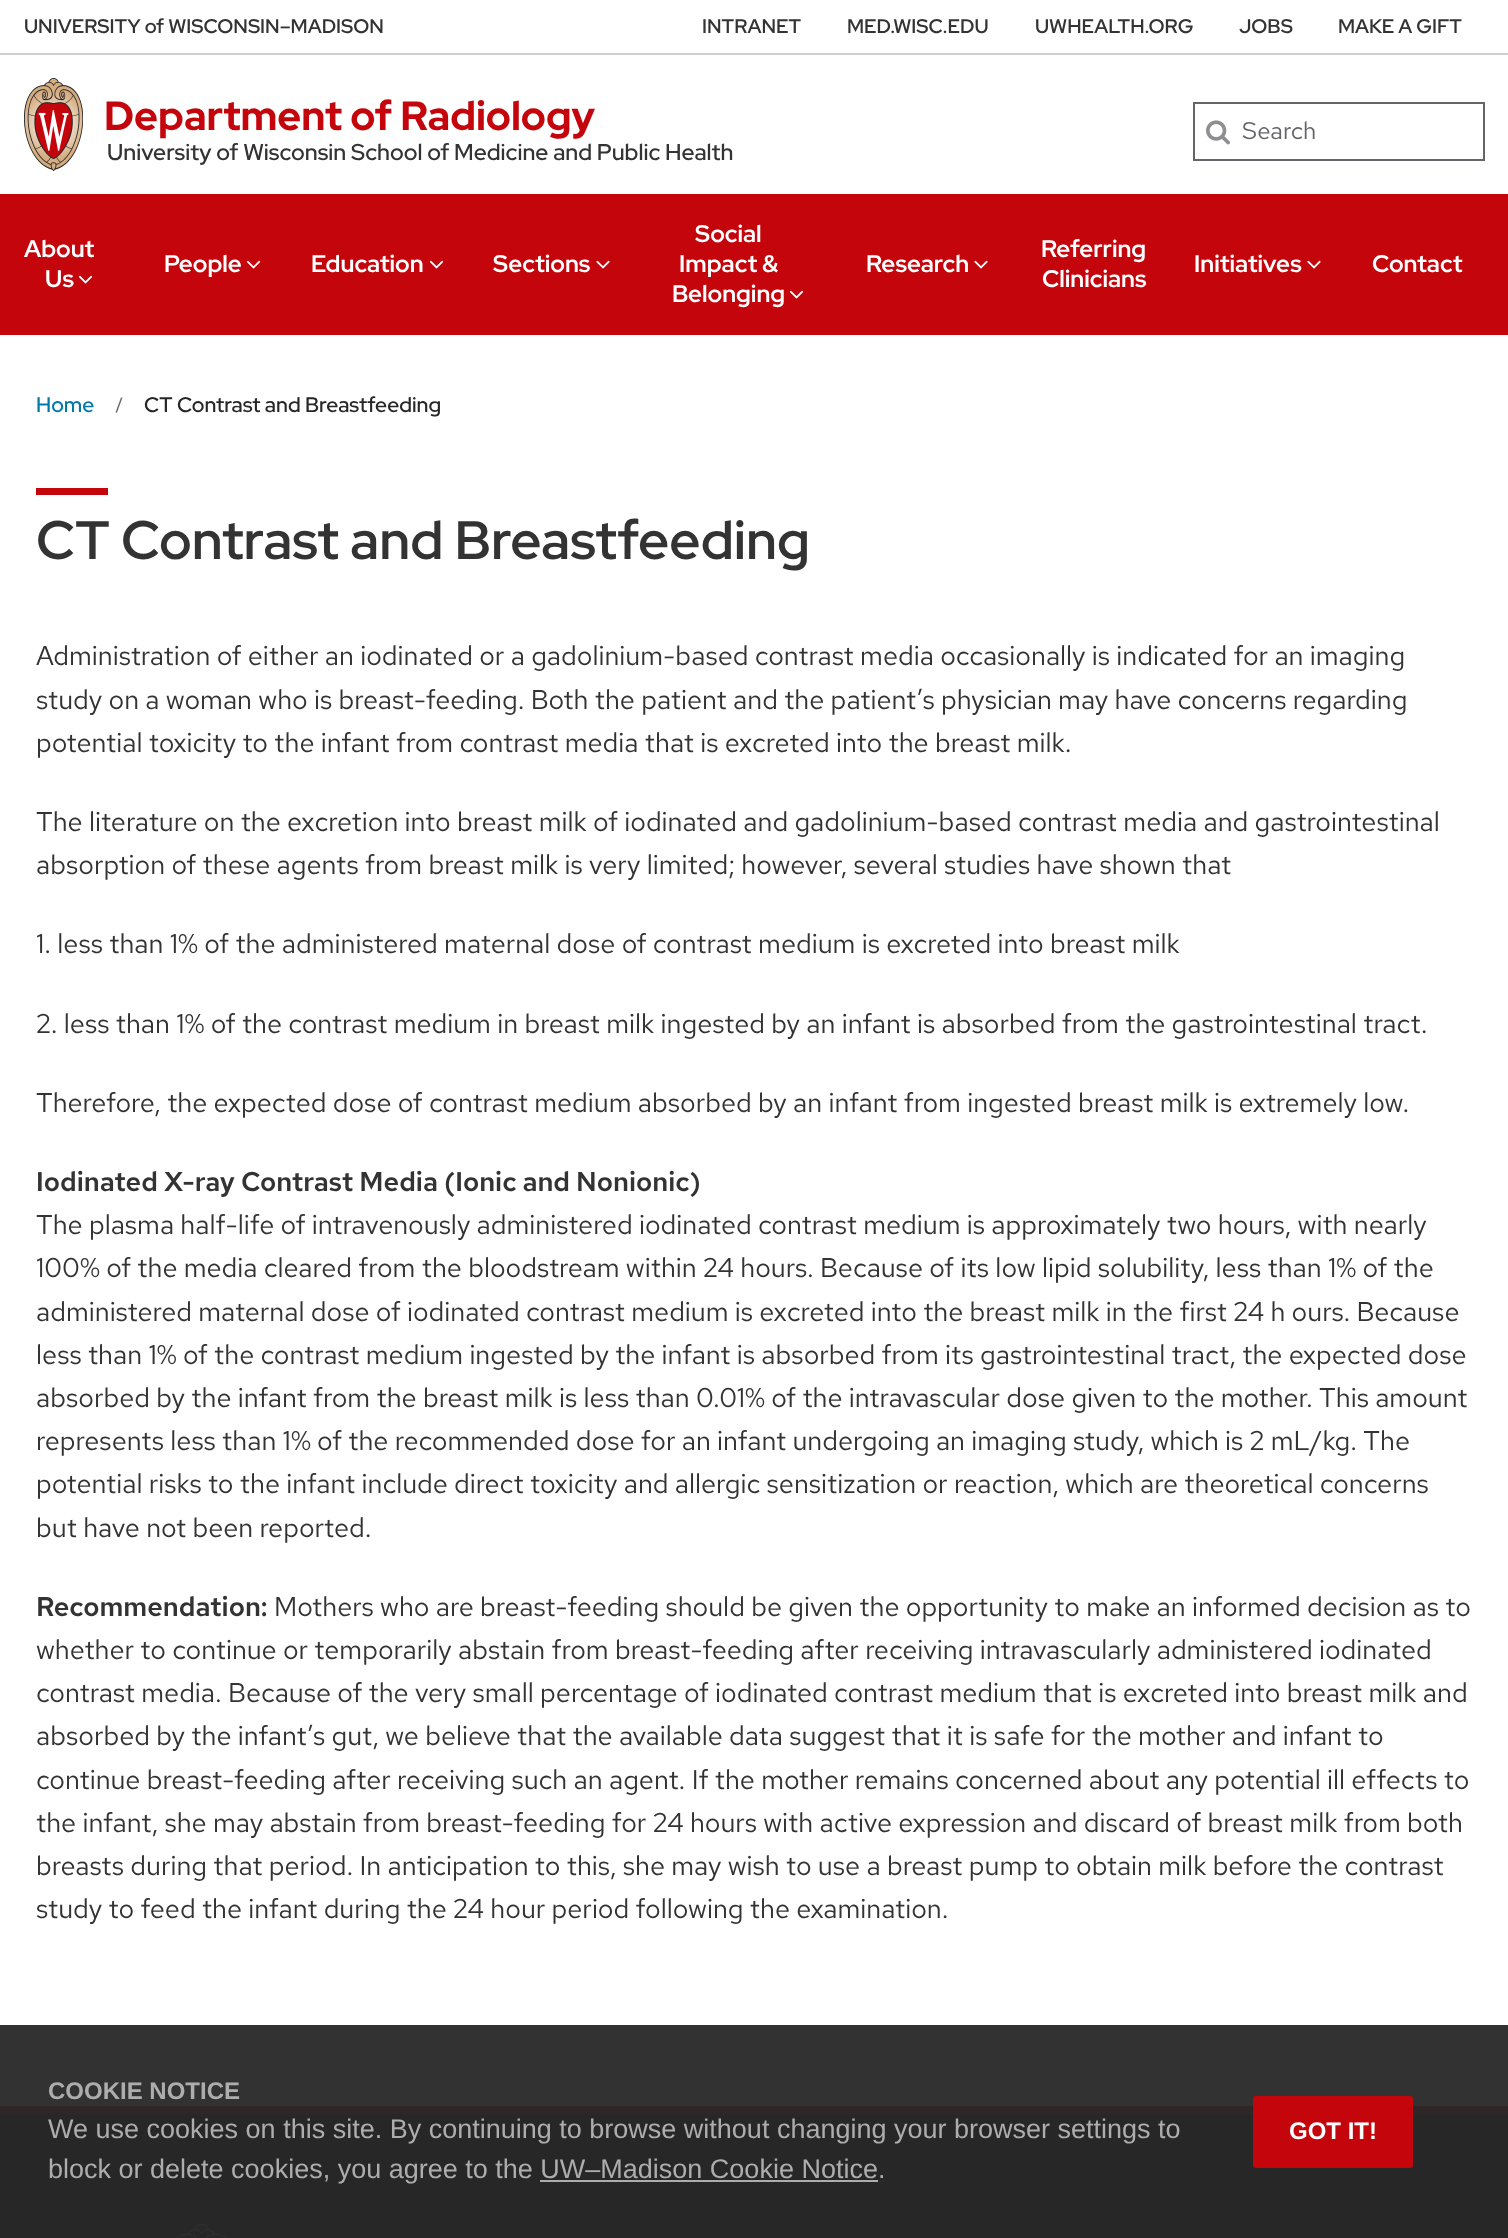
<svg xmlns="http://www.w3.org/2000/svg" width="1508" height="2238">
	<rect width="100%" height="100%" fill="#FFFFFF" />
	<rect x="0" y="2025" width="1508" height="81" fill="#333233" />
	<g font-family="'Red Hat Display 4'" font-size="19.75" font-weight="600" fill="#333333">
		<text x="702" y="33">INTRANET</text>
		<text x="847" y="33">MED.WISC.EDU</text>
		<text x="1035" y="33">UWHEALTH.ORG</text>
		<text x="1239" y="33">JOBS</text>
		<text x="1338" y="33">MAKE A GIFT</text>
	</g>
	<rect x="0" y="194" width="1508" height="141" fill="#C5050C" />
	<g font-family="'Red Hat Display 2'" font-size="24" font-weight="600" fill="#FFFFFF">
		<text x="24" y="257">About</text>
		<text x="45" y="287">Us</text>
	</g>
	<image x="78" y="275" width="15" height="9" href="assets/img1.png" />
	<text x="164" y="272" font-family="'Red Hat Display 2'" font-size="24" font-weight="600" fill="#FFFFFF">People</text>
	<image x="246" y="260" width="15" height="9" href="assets/img1.png" />
	<text x="311" y="272" font-family="'Red Hat Display 2'" font-size="24" font-weight="600" fill="#FFFFFF">Education</text>
	<image x="429" y="260" width="15" height="9" href="assets/img1.png" />
	<text x="493" y="272" font-family="'Red Hat Display 2'" font-size="24" font-weight="600" fill="#FFFFFF">Sections</text>
	<image x="596" y="260" width="14" height="9" href="assets/img2.png" />
	<g font-family="'Red Hat Display 2'" font-size="24" font-weight="600" fill="#FFFFFF">
		<text x="695" y="242">Social</text>
		<text x="679" y="272">Impact &amp;</text>
		<text x="672" y="302">Belonging</text>
	</g>
	<image x="789" y="290" width="15" height="9" href="assets/img1.png" />
	<text x="866" y="272" font-family="'Red Hat Display 2'" font-size="24" font-weight="600" fill="#FFFFFF">Research</text>
	<image x="974" y="260" width="14" height="9" href="assets/img2.png" />
	<g font-family="'Red Hat Display 2'" font-size="24" font-weight="600" fill="#FFFFFF">
		<text x="1041" y="257">Referring</text>
		<text x="1042" y="287">Clinicians</text>
		<text x="1194" y="272">Initiatives</text>
	</g>
	<image x="1307" y="260" width="14" height="9" href="assets/img2.png" />
	<text x="1372" y="272" font-family="'Red Hat Display 2'" font-size="24" font-weight="600" fill="#FFFFFF">Contact</text>
	<rect x="0" y="53" width="1508" height="2" fill="#CFCFCF" />
	<text x="24" y="33" font-family="'Red Hat Display 4'" font-size="19.75" font-weight="600" fill="#333333">UNIVERSITY of WISCONSIN–MADISON</text>
	<image x="24" y="78" width="59" height="93" href="assets/img3.png" />
	<text x="104" y="130" font-family="Red Hat Display" font-size="40.75" font-weight="800" fill="#C5050C">Department of Radiology</text>
	<text x="107" y="160" font-family="Red Hat Display" font-size="22.8" font-weight="600" fill="#333333">University of Wisconsin School of Medicine and Public Health</text>
	<image x="1206" y="120" width="24" height="25" href="assets/img4.png" />
	<rect x="1194" y="103" width="290" height="57" fill="none" stroke="#646569" stroke-width="2" />
	<text x="1242" y="139" font-family="Red Hat Text" font-size="24" fill="#646569">Search</text>
	<text x="36" y="412" font-family="Red Hat Display" font-size="21" font-weight="500" fill="#0479A8">Home</text>
	<path d="M121 397.5H122.5L117 412.5H115.5Z" fill="#646569" />
	<text x="144" y="412" font-family="Red Hat Display" font-size="21" font-weight="500" fill="#282728">CT Contrast and Breastfeeding</text>
	<rect x="36" y="488" width="72" height="7" fill="#C5050C" />
	<text x="36" y="559" font-family="'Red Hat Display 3'" font-size="54" font-weight="600" fill="#333333">CT Contrast and Breastfeeding</text>
	<g font-family="Red Hat Text" font-size="27" fill="#333333">
		<text x="36" y="665">Administration of either an iodinated or a gadolinium-based contrast media occasionally is indicated for an imaging</text>
		<text x="36" y="709">study on a woman who is breast-feeding. Both the patient and the patient’s physician may have concerns regarding</text>
		<text x="36" y="752">potential toxicity to the infant from contrast media that is excreted into the breast milk.</text>
		<text x="36" y="831">The literature on the excretion into breast milk of iodinated and gadolinium-based contrast media and gastrointestinal</text>
		<text x="36" y="874">absorption of these agents from breast milk is very limited; however, several studies have shown that</text>
		<text x="36" y="953">1. less than 1% of the administered maternal dose of contrast medium is excreted into breast milk</text>
		<text x="36" y="1033">2. less than 1% of the contrast medium in breast milk ingested by an infant is absorbed from the gastrointestinal tract.</text>
		<text x="36" y="1112">Therefore, the expected dose of contrast medium absorbed by an infant from ingested breast milk is extremely low.</text>
	</g>
	<text x="36" y="1191" font-family="Red Hat Text" font-size="27" font-weight="600" fill="#333333">Iodinated X-ray Contrast Media (Ionic and Nonionic)</text>
	<g font-family="Red Hat Text" font-size="27" fill="#333333">
		<text x="36" y="1234">The plasma half-life of intravenously administered iodinated contrast medium is approximately two hours, with nearly</text>
		<text x="36" y="1277">100% of the media cleared from the bloodstream within 24 hours. Because of its low lipid solubility, less than 1% of the</text>
		<text x="36" y="1321">administered maternal dose of iodinated contrast medium is excreted into the breast milk in the first 24 h ours. Because</text>
		<text x="36" y="1364">less than 1% of the contrast medium ingested by the infant is absorbed from its gastrointestinal tract, the expected dose</text>
		<text x="36" y="1407">absorbed by the infant from the breast milk is less than 0.01% of the intravascular dose given to the mother. This amount</text>
		<text x="36" y="1450">represents less than 1% of the recommended dose for an infant undergoing an imaging study, which is 2 mL/kg. The</text>
		<text x="36" y="1493">potential risks to the infant include direct toxicity and allergic sensitization or reaction, which are theoretical concerns</text>
		<text x="36" y="1537">but have not been reported.</text>
	</g>
	<text x="36" y="1616" font-family="Red Hat Text" font-size="27" font-weight="600" fill="#333333">Recommendation:</text>
	<g font-family="Red Hat Text" font-size="27" fill="#333333">
		<text x="274" y="1616">Mothers who are breast-feeding should be given the opportunity to make an informed decision as to</text>
		<text x="36" y="1659">whether to continue or temporarily abstain from breast-feeding after receiving intravascularly administered iodinated</text>
		<text x="36" y="1702">contrast media. Because of the very small percentage of iodinated contrast medium that is excreted into breast milk and</text>
		<text x="36" y="1745">absorbed by the infant’s gut, we believe that the available data suggest that it is safe for the mother and infant to</text>
		<text x="36" y="1789">continue breast-feeding after receiving such an agent. If the mother remains concerned about any potential ill effects to</text>
		<text x="36" y="1832">the infant, she may abstain from breast-feeding for 24 hours with active expression and discard of breast milk from both</text>
		<text x="36" y="1875">breasts during that period. In anticipation to this, she may wish to use a breast pump to obtain milk before the contrast</text>
		<text x="36" y="1918">study to feed the infant during the 24 hour period following the examination.</text>
	</g>
	<text x="48" y="2099" font-family="Liberation Sans" font-size="24" font-weight="700" fill="#ADADAD">COOKIE NOTICE</text>
	<rect x="0" y="2114" width="1508" height="124" fill="#282728" />
	<g font-family="Liberation Sans" font-size="27" fill="#ADADAD">
		<text x="48" y="2138">We use cookies on this site. By continuing to browse without changing your browser settings to</text>
		<text x="48" y="2178">block or delete cookies, you agree to the UW–Madison Cookie Notice.</text>
	</g>
	<rect x="540" y="2180" width="338" height="2" fill="#ADADAD" />
	<rect x="0" y="2106" width="1508" height="8" fill="#302527" />
	<rect x="1253" y="2096" width="160" height="72" rx="3" fill="#C5050C" />
	<text x="1289" y="2139" font-family="Liberation Sans" font-size="24" font-weight="700" fill="#FFFFFF">GOT IT!</text>
	<image x="175" y="2223" width="53" height="15" href="assets/img5.png" />
</svg>
